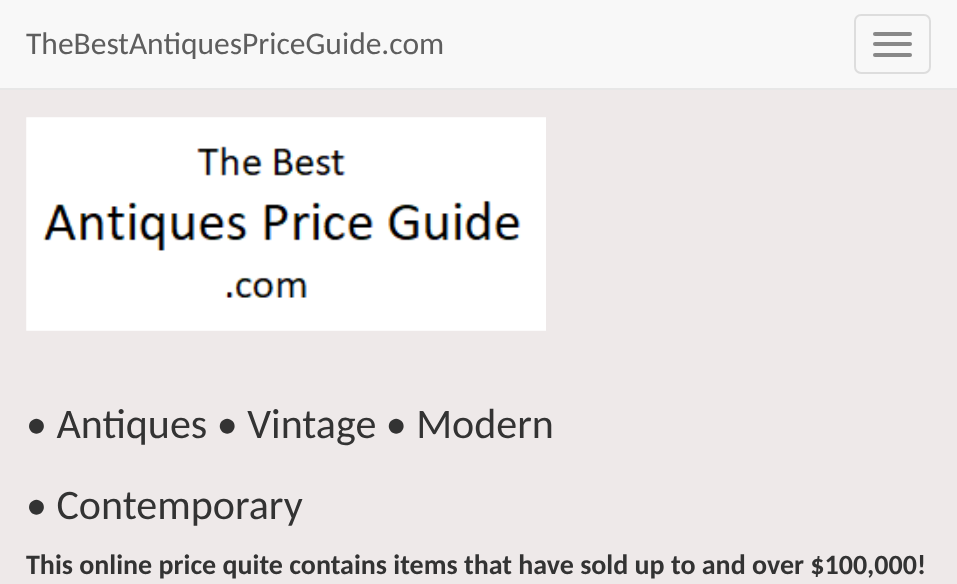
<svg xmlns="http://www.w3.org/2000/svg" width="957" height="584">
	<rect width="100%" height="100%" fill="#EEE9E9" />
	<rect x="0" y="0" width="957" height="88" fill="#F8F8F8" />
	<rect x="0" y="88" width="957" height="2" fill="#E7E7E7" />
	<text x="26" y="54" font-family="Carlito" font-size="31.5" fill="#5E5E5E">TheBestAntiquesPriceGuide.com</text>
	<rect x="855" y="15" width="75" height="58" rx="6" fill="none" stroke="#DDDDDD" stroke-width="2" />
	<rect x="873" y="32" width="39" height="4" rx="2" fill="#888888" />
	<rect x="873" y="42" width="39" height="4" rx="2" fill="#888888" />
	<rect x="873" y="53" width="39" height="4" rx="2" fill="#888888" />
	<image x="26" y="117" width="520" height="214" href="assets/img1.png" />
	<g font-family="Carlito" font-size="42" fill="#333333">
		<text x="26" y="438">• Antiques • Vintage • Modern</text>
		<text x="26" y="519">• Contemporary</text>
	</g>
	<text x="26" y="574" font-family="Carlito" font-size="28" font-weight="700" fill="#333333">This online price quite contains items that have sold up to and over $100,000!</text>
</svg>
